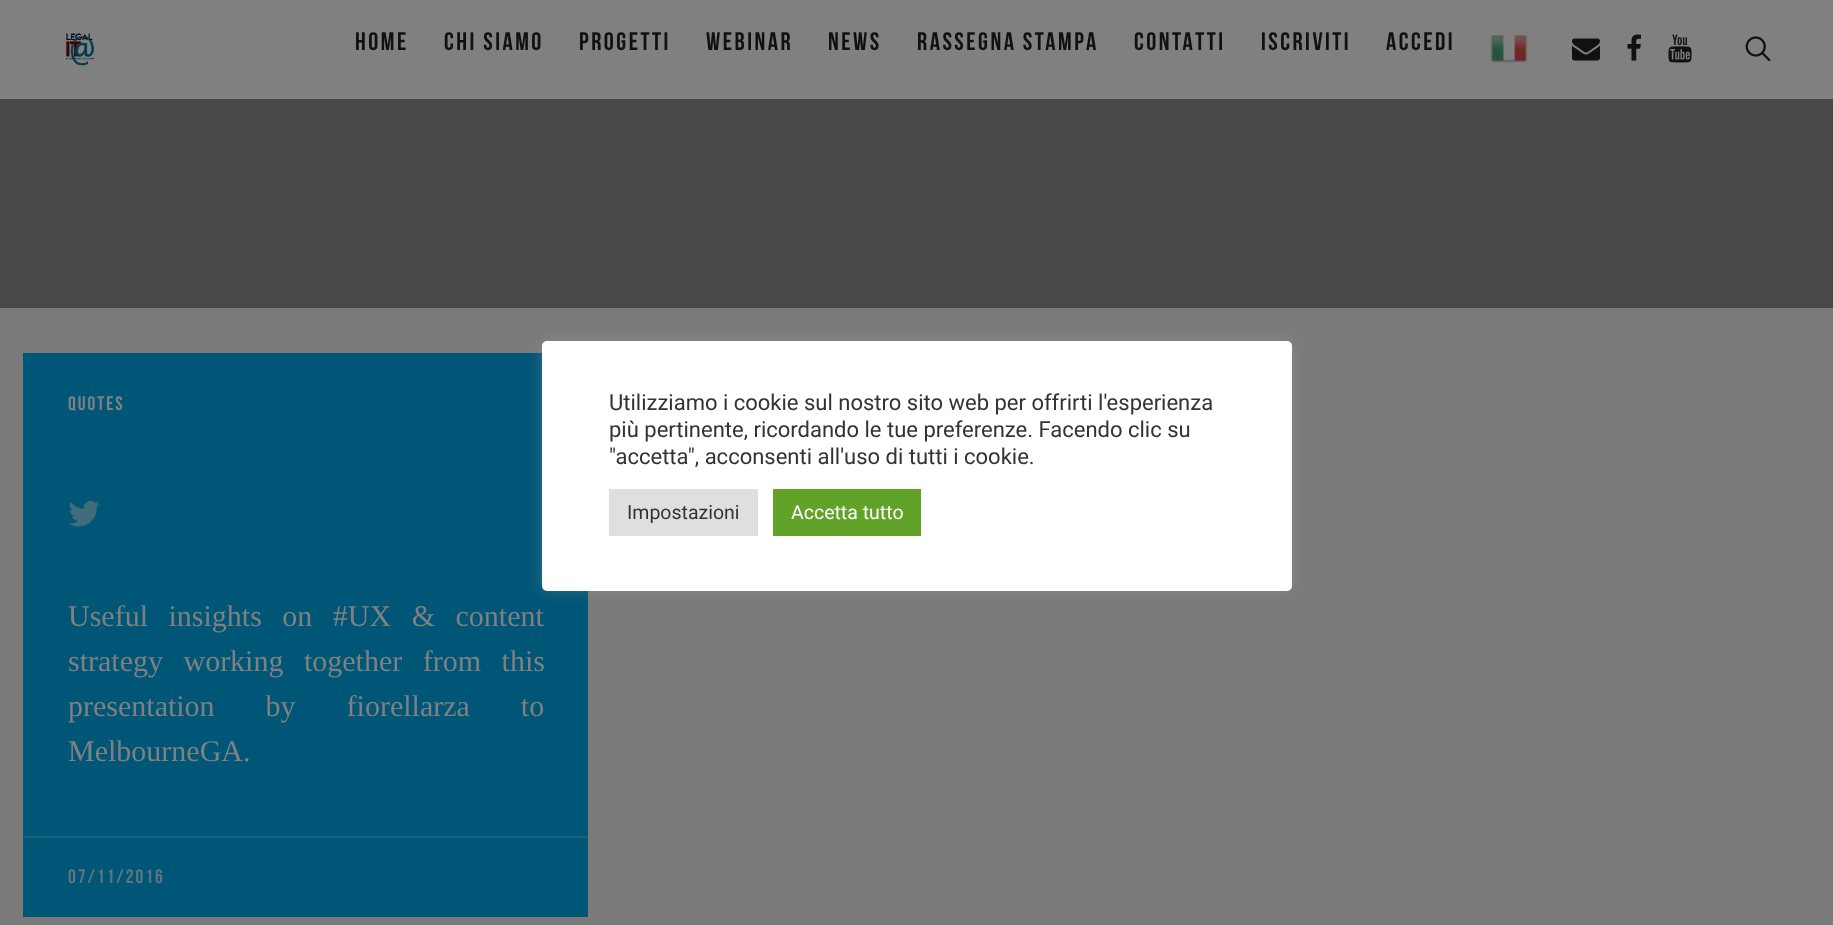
<svg xmlns="http://www.w3.org/2000/svg" width="1833" height="925">
	<rect width="100%" height="100%" fill="#484848" />
	<rect x="0" y="0" width="1833" height="99" fill="#808080" />
	<image x="66" y="33" width="28" height="33" href="assets/img1.png" />
	<g font-family="Bebas Neue" font-size="25.25" font-weight="700" letter-spacing="2.5" fill="#111111">
		<text x="355" y="50">HOME</text>
		<text x="444" y="50">CHI SIAMO</text>
		<text x="579" y="50">PROGETTI</text>
		<text x="706" y="50">WEBINAR</text>
		<text x="828" y="50">NEWS</text>
		<text x="917" y="50">RASSEGNA STAMPA</text>
		<text x="1134" y="50">CONTATTI</text>
		<text x="1261" y="50">ISCRIVITI</text>
		<text x="1386" y="50">ACCEDI</text>
	</g>
	<image x="1490" y="35" width="38" height="28" href="assets/img2.png" />
	<image x="1572" y="38" width="28" height="23" href="assets/img3.png" />
	<image x="1627" y="34" width="14" height="27" href="assets/img4.png" />
	<image x="1668" y="34" width="24" height="29" href="assets/img5.png" />
	<image x="1745" y="36" width="26" height="26" href="assets/img6.png" />
	<rect x="0" y="308" width="1833" height="617" fill="#7A7A7B" />
	<rect x="23" y="353" width="565" height="564" fill="#005677" />
	<text x="68" y="410" font-family="Bebas Neue" font-size="19.5" font-weight="700" letter-spacing="2" fill="#808080">QUOTES</text>
	<image x="68" y="500" width="32" height="27" href="assets/img7.png" />
	<g font-family="Liberation Serif" font-size="30" fill="#808080">
		<text x="68" y="626" word-spacing="13">Useful insights on #UX &amp; content</text>
		<text x="68" y="671" word-spacing="13">strategy working together from this</text>
		<text x="68" y="716" word-spacing="43.5">presentation by fiorellarza to</text>
		<text x="68" y="761">MelbourneGA.</text>
	</g>
	<rect x="23" y="836" width="565" height="2" fill="#1D6079" />
	<text x="68" y="883" font-family="Bebas Neue" font-size="19.5" font-weight="700" letter-spacing="2" fill="#60757E">07/11/2016</text>
	<rect x="542" y="339" width="750" height="251" rx="5" fill="#ACABAB" fill-opacity="0.3" filter="blur(7.5px)" />
	<rect x="542" y="341" width="750" height="250" rx="5" fill="#FFFFFF" />
	<g font-family="Roboto" font-size="22" fill="#333333">
		<text x="609" y="410">Utilizziamo i cookie sul nostro sito web per offrirti l'esperienza</text>
		<text x="609" y="437">più pertinente, ricordando le tue preferenze. Facendo clic su</text>
		<text x="609" y="464">"accetta", acconsenti all'uso di tutti i cookie.</text>
	</g>
	<rect x="609" y="489" width="149" height="47" fill="#DEDFE0" />
	<text x="627" y="519" font-family="Roboto" font-size="19.5" fill="#333333">Impostazioni</text>
	<rect x="773" y="489" width="148" height="47" fill="#61A229" />
	<text x="791" y="519" font-family="Roboto" font-size="19.5" fill="#FFFFFF">Accetta tutto</text>
</svg>
